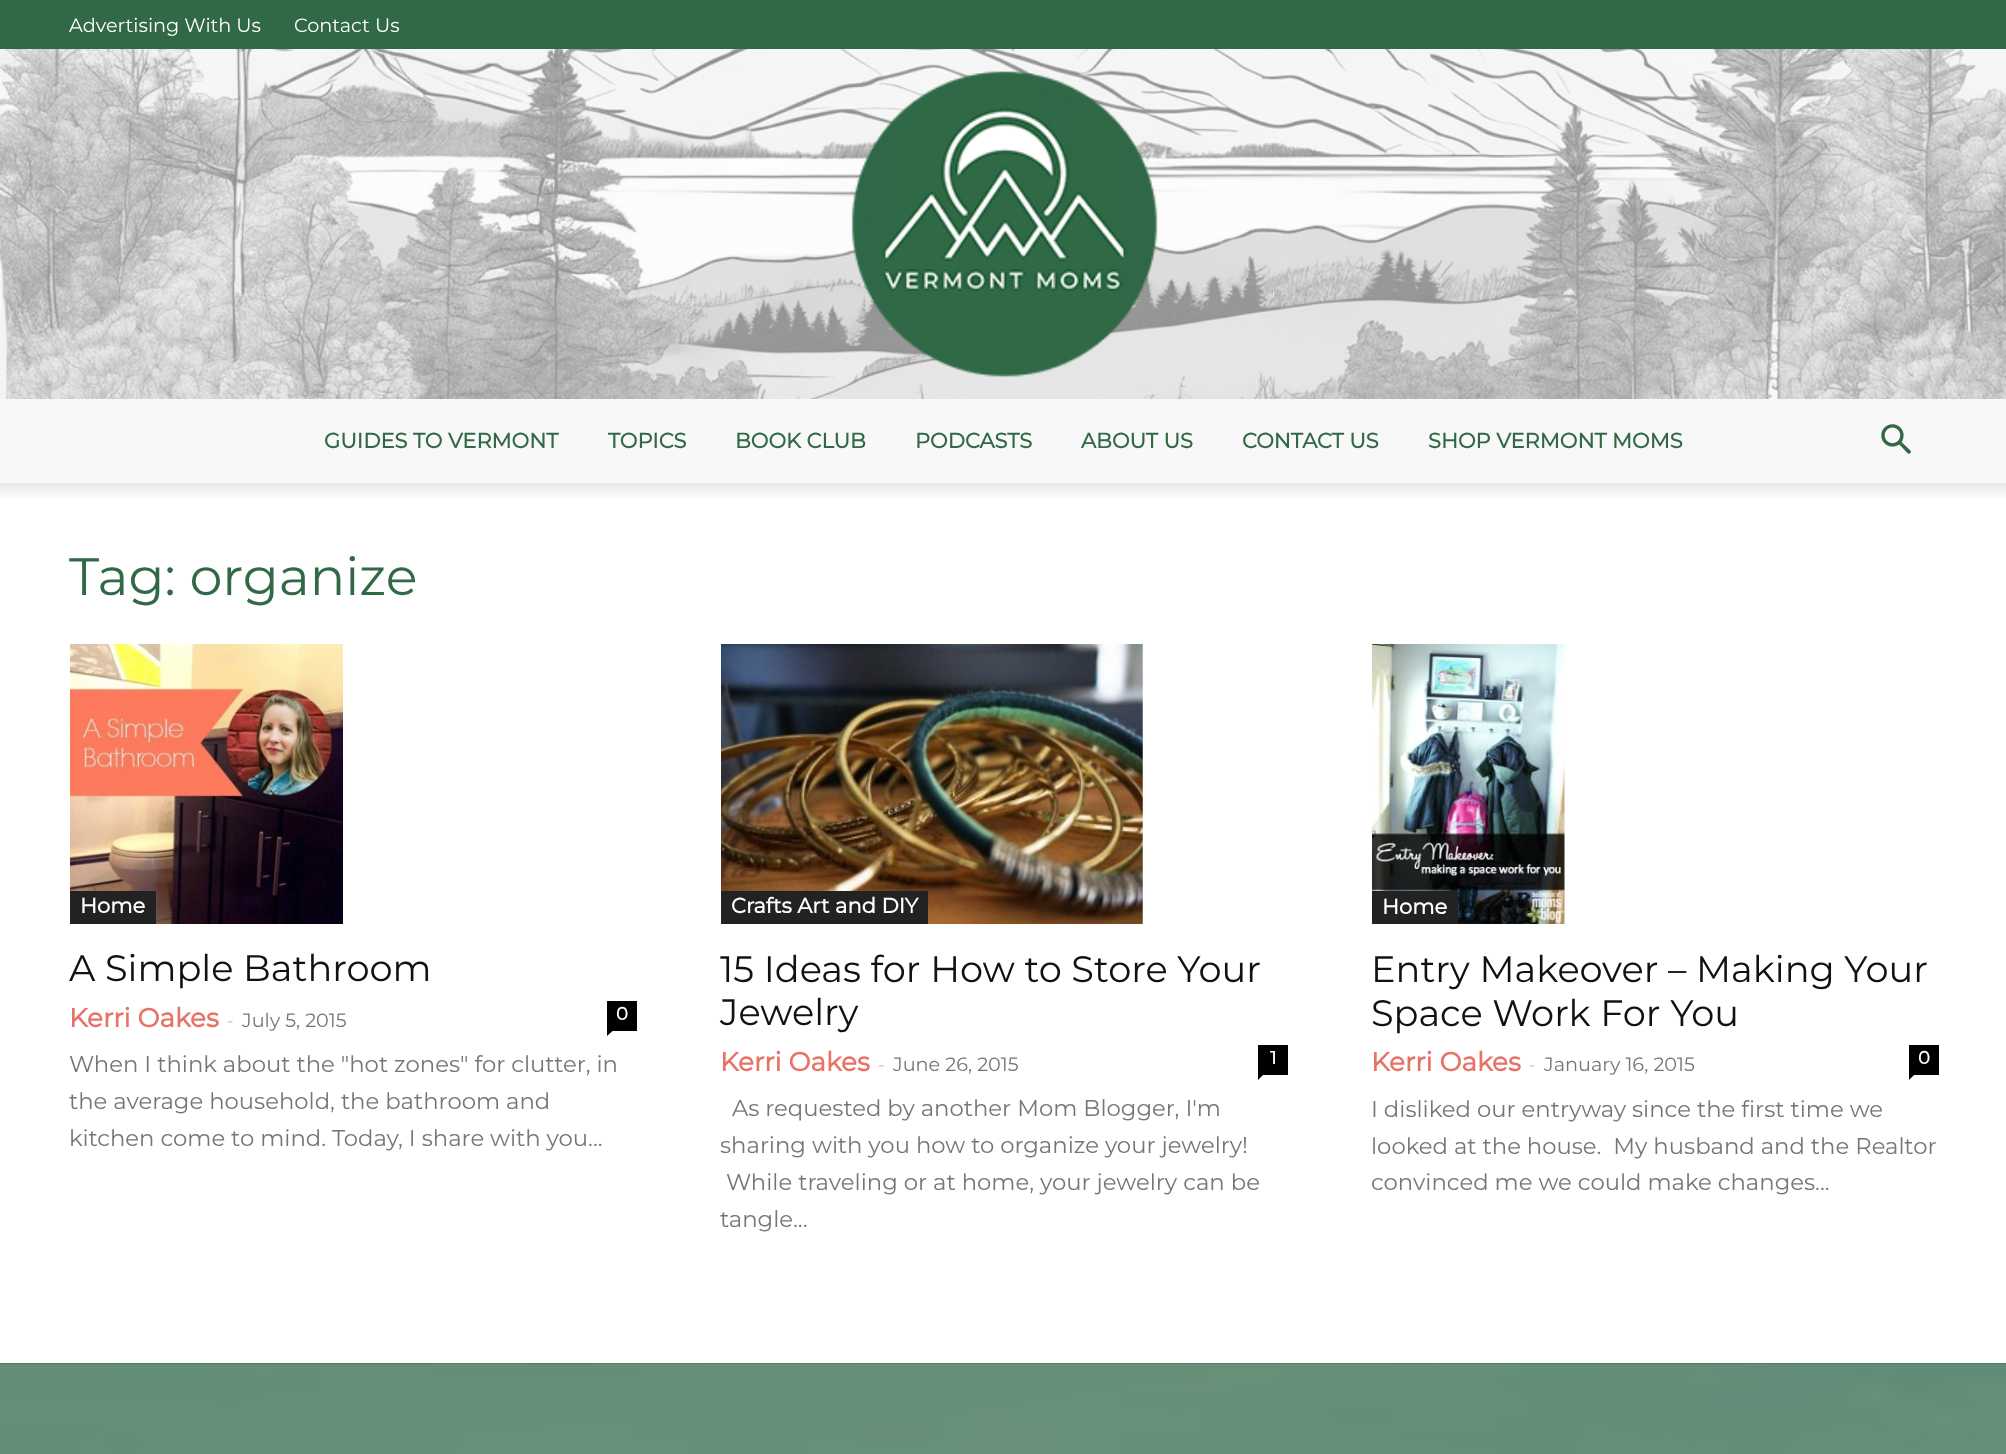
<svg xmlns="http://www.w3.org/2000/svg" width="2006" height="1454">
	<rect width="100%" height="100%" fill="#FFFFFF" />
	<rect x="0" y="0" width="2006" height="49" fill="#316845" />
	<g font-family="Montserrat" font-size="19.25" font-weight="100" fill="#FFFFFF">
		<text x="69" y="32">Advertising With Us</text>
		<text x="294" y="32">Contact Us</text>
	</g>
	<image x="0" y="49" width="2006" height="350" href="assets/img1.png" />
	<image x="851" y="71" width="307" height="306" href="assets/img2.png" />
	<rect x="0" y="399" width="2006" height="84" fill="#F8F8F8" />
	<g font-family="Montserrat" font-size="21" font-weight="700" fill="#316845">
		<text x="324" y="448">GUIDES TO VERMONT</text>
		<text x="608" y="448">TOPICS</text>
		<text x="735" y="448">BOOK CLUB</text>
		<text x="915" y="448">PODCASTS</text>
		<text x="1081" y="448">ABOUT US</text>
		<text x="1242" y="448">CONTACT US</text>
		<text x="1428" y="448">SHOP VERMONT MOMS</text>
	</g>
	<image x="1881" y="424" width="30" height="30" href="assets/img3.png" />
	<image x="0" y="483" width="2006" height="15" href="assets/img4.png" />
	<text x="69" y="595" font-family="Montserrat" font-size="52.5" font-weight="100" fill="#316845">Tag: organize</text>
	<image x="70" y="644" width="273" height="280" href="assets/img5.png" />
	<rect x="70" y="891" width="86" height="33" fill="#222222" />
	<text x="80" y="913" font-family="Montserrat" font-size="21" font-weight="700" fill="#FFFFFF">Home</text>
	<text x="69" y="981" font-family="Montserrat" font-size="36.75" font-weight="100" fill="#111111">A Simple Bathroom</text>
	<text x="69" y="1027" font-family="Montserrat" font-size="26.25" font-weight="700" fill="#E77367">Kerri Oakes</text>
	<text x="227" y="1027" font-family="Open Sans" font-size="19.25" fill="#CCCCCC">-</text>
	<text x="242" y="1027" font-family="Montserrat" font-size="19.25" font-weight="100" fill="#767676">July 5, 2015</text>
	<rect x="607" y="1001" width="30" height="30" fill="#000000" />
	<text x="616" y="1020" font-family="Montserrat" font-size="18" font-weight="700" fill="#FFFFFF">0</text>
	<path d="M607 1031H612.5L607 1036Z" fill="#000000" />
	<g font-family="Montserrat" font-size="22.75" font-weight="100" fill="#767676">
		<text x="69" y="1072">When I think about the "hot zones" for clutter, in</text>
		<text x="69" y="1109">the average household, the bathroom and</text>
		<text x="69" y="1146">kitchen come to mind. Today, I share with you...</text>
	</g>
	<image x="721" y="644" width="422" height="280" href="assets/img6.png" />
	<rect x="721" y="891" width="207" height="33" fill="#222222" />
	<text x="731" y="913" font-family="Montserrat" font-size="21" font-weight="700" fill="#FFFFFF">Crafts Art and DIY</text>
	<g font-family="Montserrat" font-size="36.75" font-weight="100" fill="#111111">
		<text x="720" y="982">15 Ideas for How to Store Your</text>
		<text x="720" y="1025">Jewelry</text>
	</g>
	<text x="720" y="1071" font-family="Montserrat" font-size="26.25" font-weight="700" fill="#E77367">Kerri Oakes</text>
	<text x="878" y="1071" font-family="Open Sans" font-size="19.25" fill="#CCCCCC">-</text>
	<text x="893" y="1071" font-family="Montserrat" font-size="19.25" font-weight="100" fill="#767676">June 26, 2015</text>
	<rect x="1258" y="1045" width="30" height="30" fill="#000000" />
	<text x="1270" y="1064" font-family="Montserrat" font-size="18" font-weight="700" fill="#FFFFFF">1</text>
	<path d="M1258 1074.5H1263.5L1258 1080Z" fill="#000000" />
	<g font-family="Montserrat" font-size="22.75" font-weight="100" fill="#767676">
		<text x="732" y="1116">As requested by another Mom Blogger, I'm</text>
		<text x="720" y="1153">sharing with you how to organize your jewelry!</text>
		<text x="726" y="1190">While traveling or at home, your jewelry can be</text>
		<text x="720" y="1227">tangle...</text>
	</g>
	<image x="1372" y="644" width="193" height="280" href="assets/img7.png" />
	<rect x="1372" y="891" width="86" height="33" fill="#222222" />
	<text x="1382" y="914" font-family="Montserrat" font-size="21" font-weight="700" fill="#FFFFFF">Home</text>
	<g font-family="Montserrat" font-size="36.75" font-weight="100" fill="#111111">
		<text x="1371" y="982">Entry Makeover – Making Your</text>
		<text x="1371" y="1026">Space Work For You</text>
	</g>
	<text x="1371" y="1071" font-family="Montserrat" font-size="26.25" font-weight="700" fill="#E77367">Kerri Oakes</text>
	<text x="1529" y="1071" font-family="Open Sans" font-size="19.25" fill="#CCCCCC">-</text>
	<text x="1544" y="1071" font-family="Montserrat" font-size="19.25" font-weight="100" fill="#767676">January 16, 2015</text>
	<rect x="1909" y="1045" width="30" height="30" fill="#000000" />
	<text x="1918" y="1064" font-family="Montserrat" font-size="18" font-weight="700" fill="#FFFFFF">0</text>
	<path d="M1909 1074.5H1914.5L1909 1080Z" fill="#000000" />
	<g font-family="Montserrat" font-size="22.75" font-weight="100" fill="#767676">
		<text x="1371" y="1117">I disliked our entryway since the first time we</text>
		<text x="1371" y="1154" xml:space="preserve">looked at the house.  My husband and the Realtor</text>
		<text x="1371" y="1190">convinced me we could make changes...</text>
	</g>
	<rect x="0" y="1363" width="2006" height="91" fill="#316845" />
	<image x="0" y="1363" width="2006" height="91" href="assets/img8.png" />
</svg>
